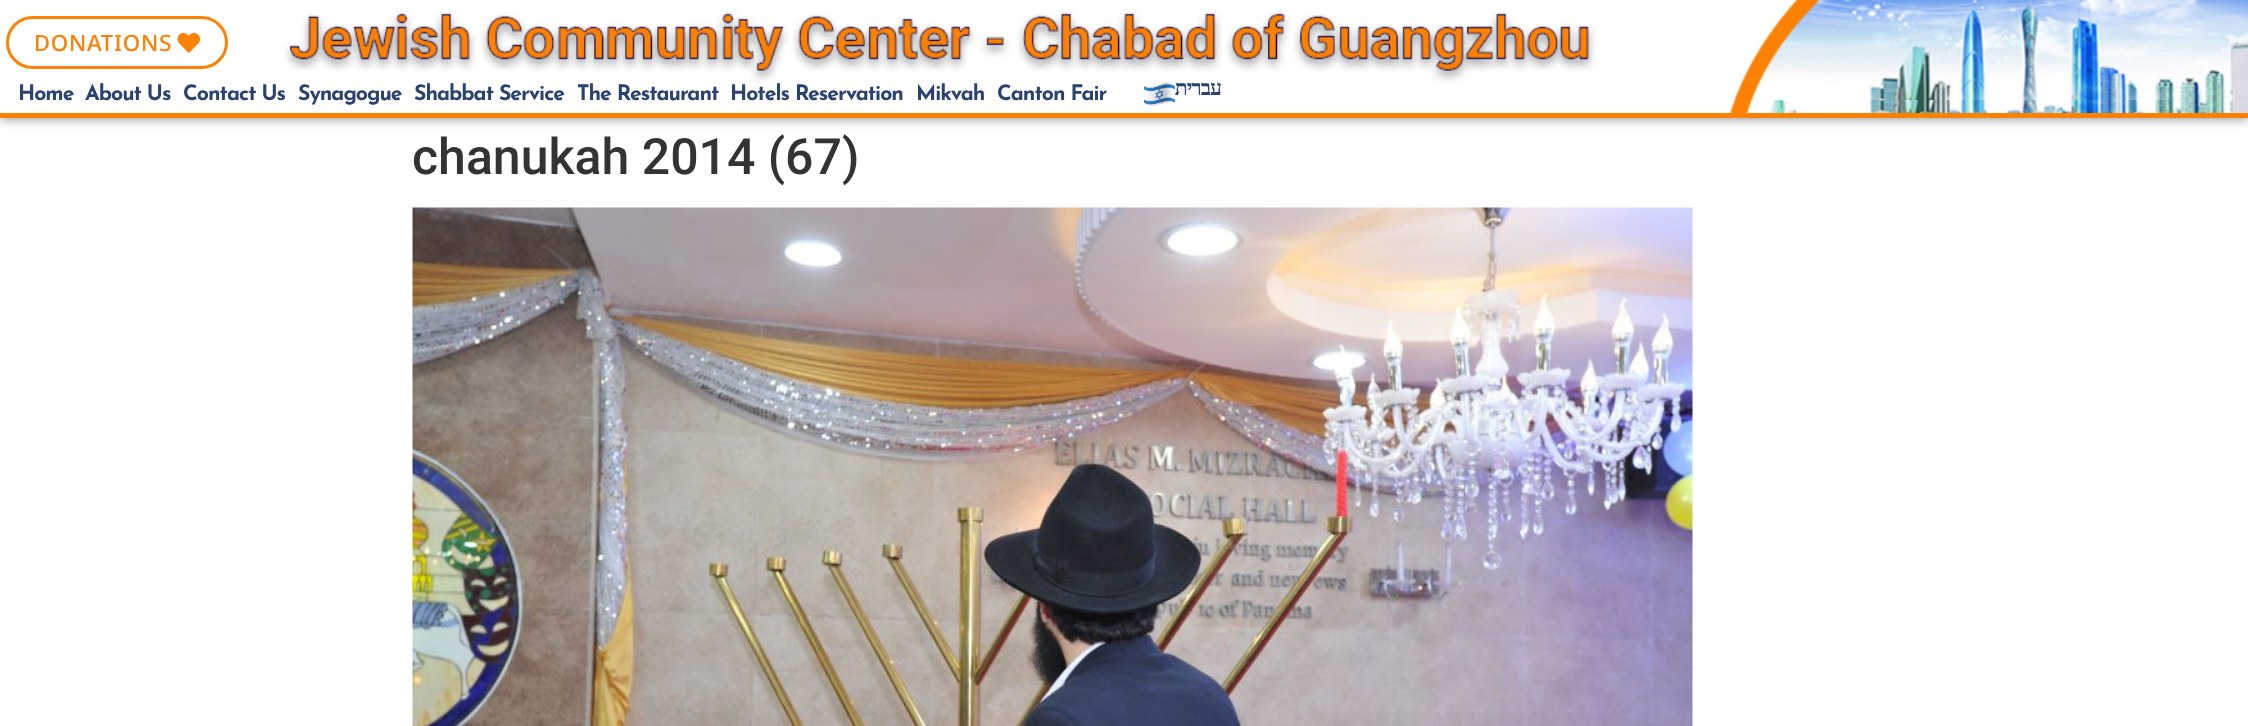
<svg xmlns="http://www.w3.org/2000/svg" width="2248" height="726">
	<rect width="100%" height="100%" fill="#FFFFFF" />
	<rect x="0" y="0" width="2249" height="118" fill="#000000" fill-opacity="0.5" filter="blur(6px)" />
	<image x="0" y="0" width="2248" height="113" href="assets/img1.png" />
	<rect x="0" y="113" width="2248" height="5" fill="#FD8204" />
	<rect x="7.5" y="17.5" width="219" height="50" rx="25" fill="none" stroke="#FD8204" stroke-width="3" />
	<text x="34" y="51" font-family="Noto Sans Hebrew" font-size="22.5" font-weight="500" letter-spacing="0.75" fill="#FD8204">DONATIONS</text>
	<image x="177" y="33" width="23" height="20" href="assets/img2.png" />
	<g font-family="Josefin Sans" font-size="21.25" font-weight="700" letter-spacing="-1" fill="#2A426E">
		<text x="18" y="100">Home</text>
		<text x="85" y="100">About Us</text>
		<text x="183" y="100">Contact Us</text>
		<text x="298" y="100">Synagogue</text>
		<text x="414" y="100">Shabbat Service</text>
		<text x="577" y="100">The Restaurant</text>
		<text x="730" y="100">Hotels Reservation</text>
		<text x="916" y="100">Mikvah</text>
		<text x="997" y="100">Canton Fair</text>
	</g>
	<image x="1143" y="82" width="32" height="24" href="assets/img3.png" />
	<text x="1221" y="95" font-family="Liberation Serif" font-size="21.25" font-weight="700" letter-spacing="-1" direction="rtl" fill="#2A426E">עברית</text>
	<text x="412" y="174" font-family="Roboto" font-size="50" font-weight="500" fill="#333333">chanukah 2014 (67)</text>
	<image x="412" y="207" width="1281" height="519" href="assets/img4.png" />
</svg>
